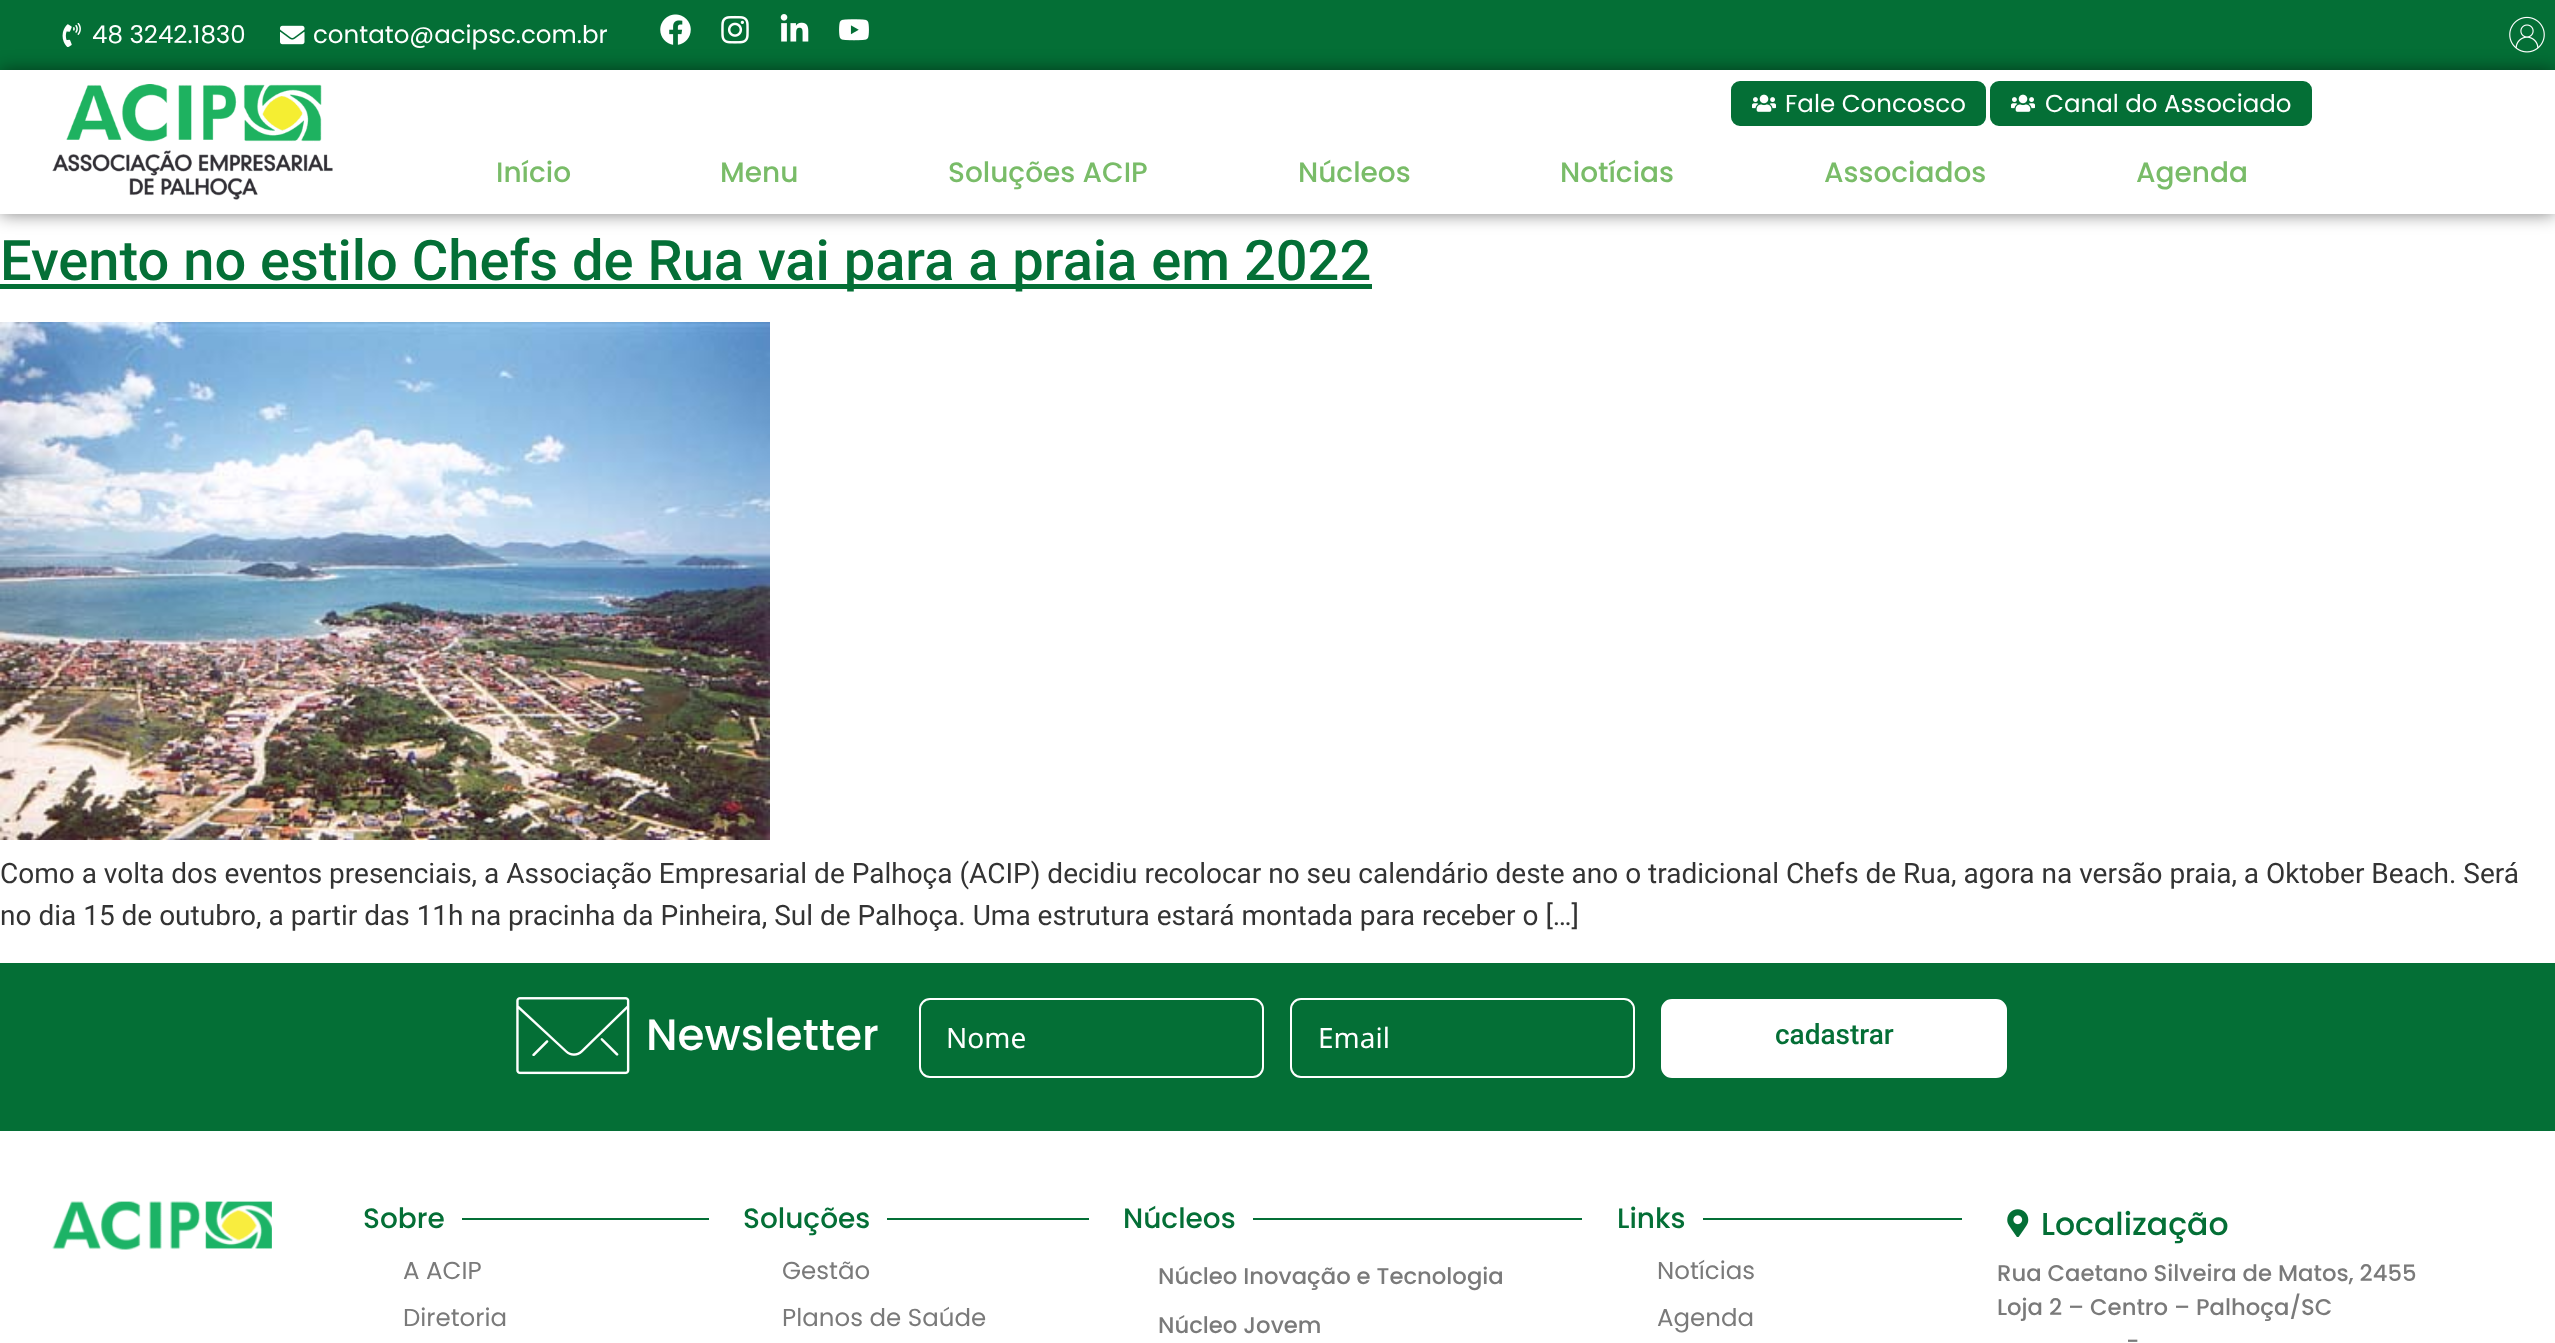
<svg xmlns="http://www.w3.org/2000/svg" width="2555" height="1343">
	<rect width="100%" height="100%" fill="#FFFFFF" />
	<rect x="0" y="0" width="2555" height="70" fill="#046F36" />
	<image x="62" y="23" width="19" height="24" href="assets/img1.png" />
	<text x="92" y="43" font-family="Poppins" font-size="24.5" fill="#FFFFFF">48 3242.1830</text>
	<image x="280" y="25" width="25" height="20" href="assets/img2.png" />
	<text x="313" y="43" font-family="Poppins" font-size="24.5" fill="#FFFFFF">contato@acipsc.com.br</text>
	<image x="660" y="14" width="31" height="31" href="assets/img3.png" />
	<image x="721" y="15" width="28" height="29" href="assets/img4.png" />
	<image x="780" y="14" width="29" height="28" href="assets/img5.png" />
	<image x="839" y="19" width="30" height="22" href="assets/img6.png" />
	<image x="2509" y="16" width="36" height="37" href="assets/img7.png" />
	<rect x="0" y="70" width="2555" height="144" fill="#000000" fill-opacity="0.5" filter="blur(9px)" />
	<rect x="0" y="70" width="2555" height="144" fill="#FFFFFF" />
	<image x="52" y="84" width="281" height="116" href="assets/img8.png" />
	<rect x="1730" y="80" width="257" height="47" rx="10" fill="#046F36" stroke="#FFFFFF" stroke-width="2" />
	<image x="1752" y="94" width="24" height="18" href="assets/img9.png" />
	<text x="1785" y="112" font-family="Poppins" font-size="24.5" fill="#FFFFFF">Fale Concosco</text>
	<rect x="1989" y="80" width="324" height="47" rx="10" fill="#046F36" stroke="#FFFFFF" stroke-width="2" />
	<image x="2011" y="94" width="24" height="18" href="assets/img9.png" />
	<text x="2045" y="112" font-family="Poppins" font-size="24.5" fill="#FFFFFF">Canal do Associado</text>
	<g font-family="Poppins" font-size="28" font-weight="500" fill="#79BC68">
		<text x="496" y="182">Início</text>
		<text x="720" y="182">Menu</text>
		<text x="948" y="182">Soluções ACIP</text>
		<text x="1298" y="182">Núcleos</text>
		<text x="1560" y="182">Notícias</text>
		<text x="1824" y="182">Associados</text>
		<text x="2136" y="182">Agenda</text>
	</g>
	<rect x="0" y="284" width="1372" height="5" fill="#046F36" />
	<text x="0" y="280" font-family="Roboto" font-size="56" font-weight="500" fill="#046F36">Evento no estilo Chefs de Rua vai para a praia em 2022</text>
	<image x="0" y="322" width="770" height="518" href="assets/img10.png" />
	<g font-family="Roboto" font-size="28" fill="#333333">
		<text x="0" y="883">Como a volta dos eventos presenciais, a Associação Empresarial de Palhoça (ACIP) decidiu recolocar no seu calendário deste ano o tradicional Chefs de Rua, agora na versão praia, a Oktober Beach. Será</text>
		<text x="0" y="925">no dia 15 de outubro, a partir das 11h na pracinha da Pinheira, Sul de Palhoça. Uma estrutura estará montada para receber o […]</text>
	</g>
	<rect x="0" y="963" width="2555" height="168" fill="#046F36" />
	<image x="516" y="997" width="114" height="78" href="assets/img11.png" />
	<text x="646" y="1050" font-family="Poppins" font-size="43.75" font-weight="500" fill="#FFFFFF">Newsletter</text>
	<rect x="920" y="999" width="343" height="78" rx="10" fill="none" stroke="#FFFFFF" stroke-width="2" />
	<text x="946" y="1048" font-family="Noto Sans" font-size="28" fill="#FFFFFF">Nome</text>
	<rect x="1291" y="999" width="343" height="78" rx="10" fill="none" stroke="#FFFFFF" stroke-width="2" />
	<text x="1318" y="1048" font-family="Noto Sans" font-size="28" fill="#FFFFFF">Email</text>
	<rect x="1662" y="1000" width="344" height="77" rx="10" fill="#FFFFFF" stroke="#FFFFFF" stroke-width="2" />
	<text x="1775" y="1044" font-family="Roboto" font-size="28" font-weight="500" fill="#046F36">cadastrar</text>
	<image x="52" y="1201" width="220" height="49" href="assets/img12.png" />
	<text x="363" y="1228" font-family="Poppins" font-size="28" font-weight="500" fill="#046F36">Sobre</text>
	<rect x="462" y="1218" width="247" height="2" fill="#046F36" />
	<g font-family="Poppins" font-size="24.5" fill="#7A7A7A">
		<text x="403" y="1279">A ACIP</text>
		<text x="403" y="1326">Diretoria</text>
	</g>
	<text x="743" y="1228" font-family="Poppins" font-size="28" font-weight="500" fill="#046F36">Soluções</text>
	<rect x="887" y="1218" width="202" height="2" fill="#046F36" />
	<g font-family="Poppins" font-size="24.5" fill="#7A7A7A">
		<text x="782" y="1279">Gestão</text>
		<text x="782" y="1326">Planos de Saúde</text>
	</g>
	<text x="1123" y="1228" font-family="Poppins" font-size="28" font-weight="500" fill="#046F36">Núcleos</text>
	<rect x="1253" y="1218" width="329" height="2" fill="#046F36" />
	<g font-family="Poppins" font-size="22.75" font-weight="500" fill="#7A7A7A">
		<text x="1158" y="1284">Núcleo Inovação e Tecnologia</text>
		<text x="1158" y="1333">Núcleo Jovem</text>
	</g>
	<text x="1617" y="1228" font-family="Poppins" font-size="28" font-weight="500" fill="#046F36">Links</text>
	<rect x="1703" y="1218" width="259" height="2" fill="#046F36" />
	<g font-family="Poppins" font-size="24.5" fill="#7A7A7A">
		<text x="1657" y="1279">Notícias</text>
		<text x="1657" y="1326">Agenda</text>
	</g>
	<image x="2007" y="1209" width="22" height="28" href="assets/img13.png" />
	<text x="2041" y="1235" font-family="Poppins" font-size="31.5" font-weight="500" fill="#046F36">Localização</text>
	<g font-family="Poppins" font-size="22.75" font-weight="500" fill="#7A7A7A">
		<text x="1997" y="1281">Rua Caetano Silveira de Matos, 2455</text>
		<text x="1997" y="1315">Loja 2 – Centro – Palhoça/SC</text>
		<text x="2126" y="1349">-</text>
	</g>
</svg>
